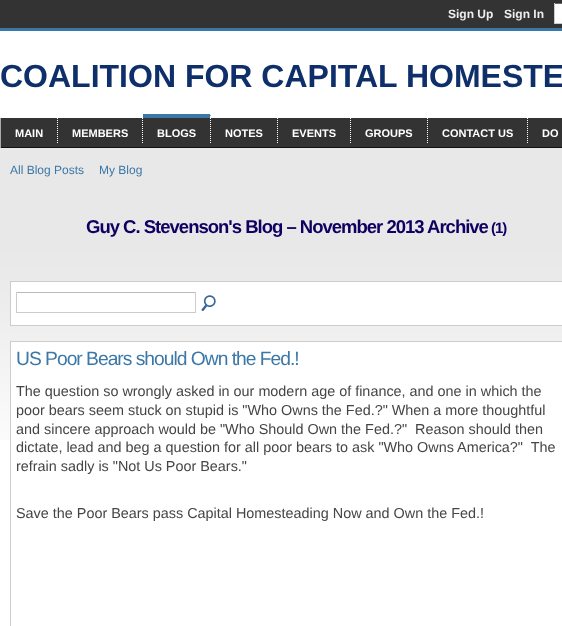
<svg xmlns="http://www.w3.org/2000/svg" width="562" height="626">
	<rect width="100%" height="100%" fill="#FFFFFF" />
	<rect x="0" y="0" width="562" height="28" fill="#333333" />
	<g font-family="Liberation Sans" font-size="12" font-weight="700" fill="#EEEEEE">
		<text x="448" y="18">Sign Up</text>
		<text x="504" y="18">Sign In</text>
	</g>
	<rect x="555" y="3" width="7" height="21" fill="#FFFFFF" />
	<rect x="554" y="3" width="8" height="1" fill="#666666" />
	<rect x="554" y="23" width="8" height="1" fill="#CCCCCC" />
	<rect x="554" y="3" width="1" height="21" fill="#CCCCCC" />
	<rect x="0" y="28" width="562" height="3" fill="#3C78A7" />
	<text x="0" y="87" font-family="Liberation Sans" font-size="32" font-weight="700" fill="#0F2F6B">COALITION FOR CAPITAL HOMESTE</text>
	<rect x="1" y="118" width="561" height="29" fill="#333333" />
	<rect x="0" y="147" width="562" height="1" fill="#111111" />
	<rect x="0" y="118" width="1" height="30" fill="#AAAAAA" />
	<path d="M57.5 114V143" fill="none" stroke="#FFFFFF" stroke-dasharray="1 1" />
	<text x="15" y="137" font-family="Liberation Sans" font-size="11" font-weight="700" fill="#FFFFFF">MAIN</text>
	<path d="M142.5 114V143" fill="none" stroke="#FFFFFF" stroke-dasharray="1 1" />
	<text x="72" y="137" font-family="Liberation Sans" font-size="11" font-weight="700" fill="#FFFFFF">MEMBERS</text>
	<path d="M143 114H211L210 118H143Z" fill="#3C78A7" />
	<path d="M210.5 114V143" fill="none" stroke="#FFFFFF" stroke-dasharray="1 1" />
	<text x="157" y="137" font-family="Liberation Sans" font-size="11" font-weight="700" fill="#FFFFFF">BLOGS</text>
	<path d="M277.5 114V143" fill="none" stroke="#FFFFFF" stroke-dasharray="1 1" />
	<text x="225" y="137" font-family="Liberation Sans" font-size="11" font-weight="700" fill="#FFFFFF">NOTES</text>
	<path d="M350.5 114V143" fill="none" stroke="#FFFFFF" stroke-dasharray="1 1" />
	<text x="292" y="137" font-family="Liberation Sans" font-size="11" font-weight="700" fill="#FFFFFF">EVENTS</text>
	<path d="M427.5 114V143" fill="none" stroke="#FFFFFF" stroke-dasharray="1 1" />
	<text x="365" y="137" font-family="Liberation Sans" font-size="11" font-weight="700" fill="#FFFFFF">GROUPS</text>
	<path d="M527.5 114V143" fill="none" stroke="#FFFFFF" stroke-dasharray="1 1" />
	<g font-family="Liberation Sans" font-size="11" font-weight="700" fill="#FFFFFF">
		<text x="442" y="137">CONTACT US</text>
		<text x="542" y="137">DO</text>
	</g>
	<image x="0" y="148" width="562" height="292" href="assets/img1.png" />
	<g font-family="Liberation Sans" font-size="12" fill="#3C78A7">
		<text x="10" y="174">All Blog Posts</text>
		<text x="99" y="174">My Blog</text>
	</g>
	<text x="86" y="233" font-family="Liberation Sans" font-size="18.5" font-weight="700" letter-spacing="-1" fill="#0F0061">Guy C. Stevenson's Blog – November 2013 Archive</text>
	<text x="491" y="233" font-family="Liberation Sans" font-size="15" font-weight="700" letter-spacing="-1" fill="#0F0061">(1)</text>
	<rect x="10.5" y="281.5" width="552" height="44" fill="#FFFFFF" stroke="#CCCCCC" />
	<rect x="16" y="292" width="180" height="1" fill="#BBBBBB" />
	<rect x="195" y="292" width="1" height="21" fill="#CCCCCC" />
	<rect x="16" y="312" width="180" height="1" fill="#CCCCCC" />
	<rect x="16" y="292" width="1" height="21" fill="#CCCCCC" />
	<image x="201" y="295" width="15" height="16" href="assets/img2.png" />
	<rect x="11" y="342" width="551" height="98" fill="#FFFFFF" />
	<rect x="10.5" y="341.5" width="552" height="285" fill="none" stroke="#CCCCCC" />
	<text x="16" y="365" font-family="Liberation Sans" font-size="19.25" letter-spacing="-1" fill="#3C78A7">US Poor Bears should Own the Fed.!</text>
	<g font-family="Liberation Sans" font-size="14.4" fill="#454545">
		<text x="16" y="396">The question so wrongly asked in our modern age of finance, and one in which the</text>
		<text x="16" y="415">poor bears seem stuck on stupid is "Who Owns the Fed.?" When a more thoughtful</text>
		<text x="16" y="434" xml:space="preserve">and sincere approach would be "Who Should Own the Fed.?"  Reason should then</text>
		<text x="16" y="452" xml:space="preserve">dictate, lead and beg a question for all poor bears to ask "Who Owns America?"  The</text>
		<text x="16" y="471">refrain sadly is "Not Us Poor Bears."</text>
		<text x="16" y="518">Save the Poor Bears pass Capital Homesteading Now and Own the Fed.!</text>
	</g>
</svg>
